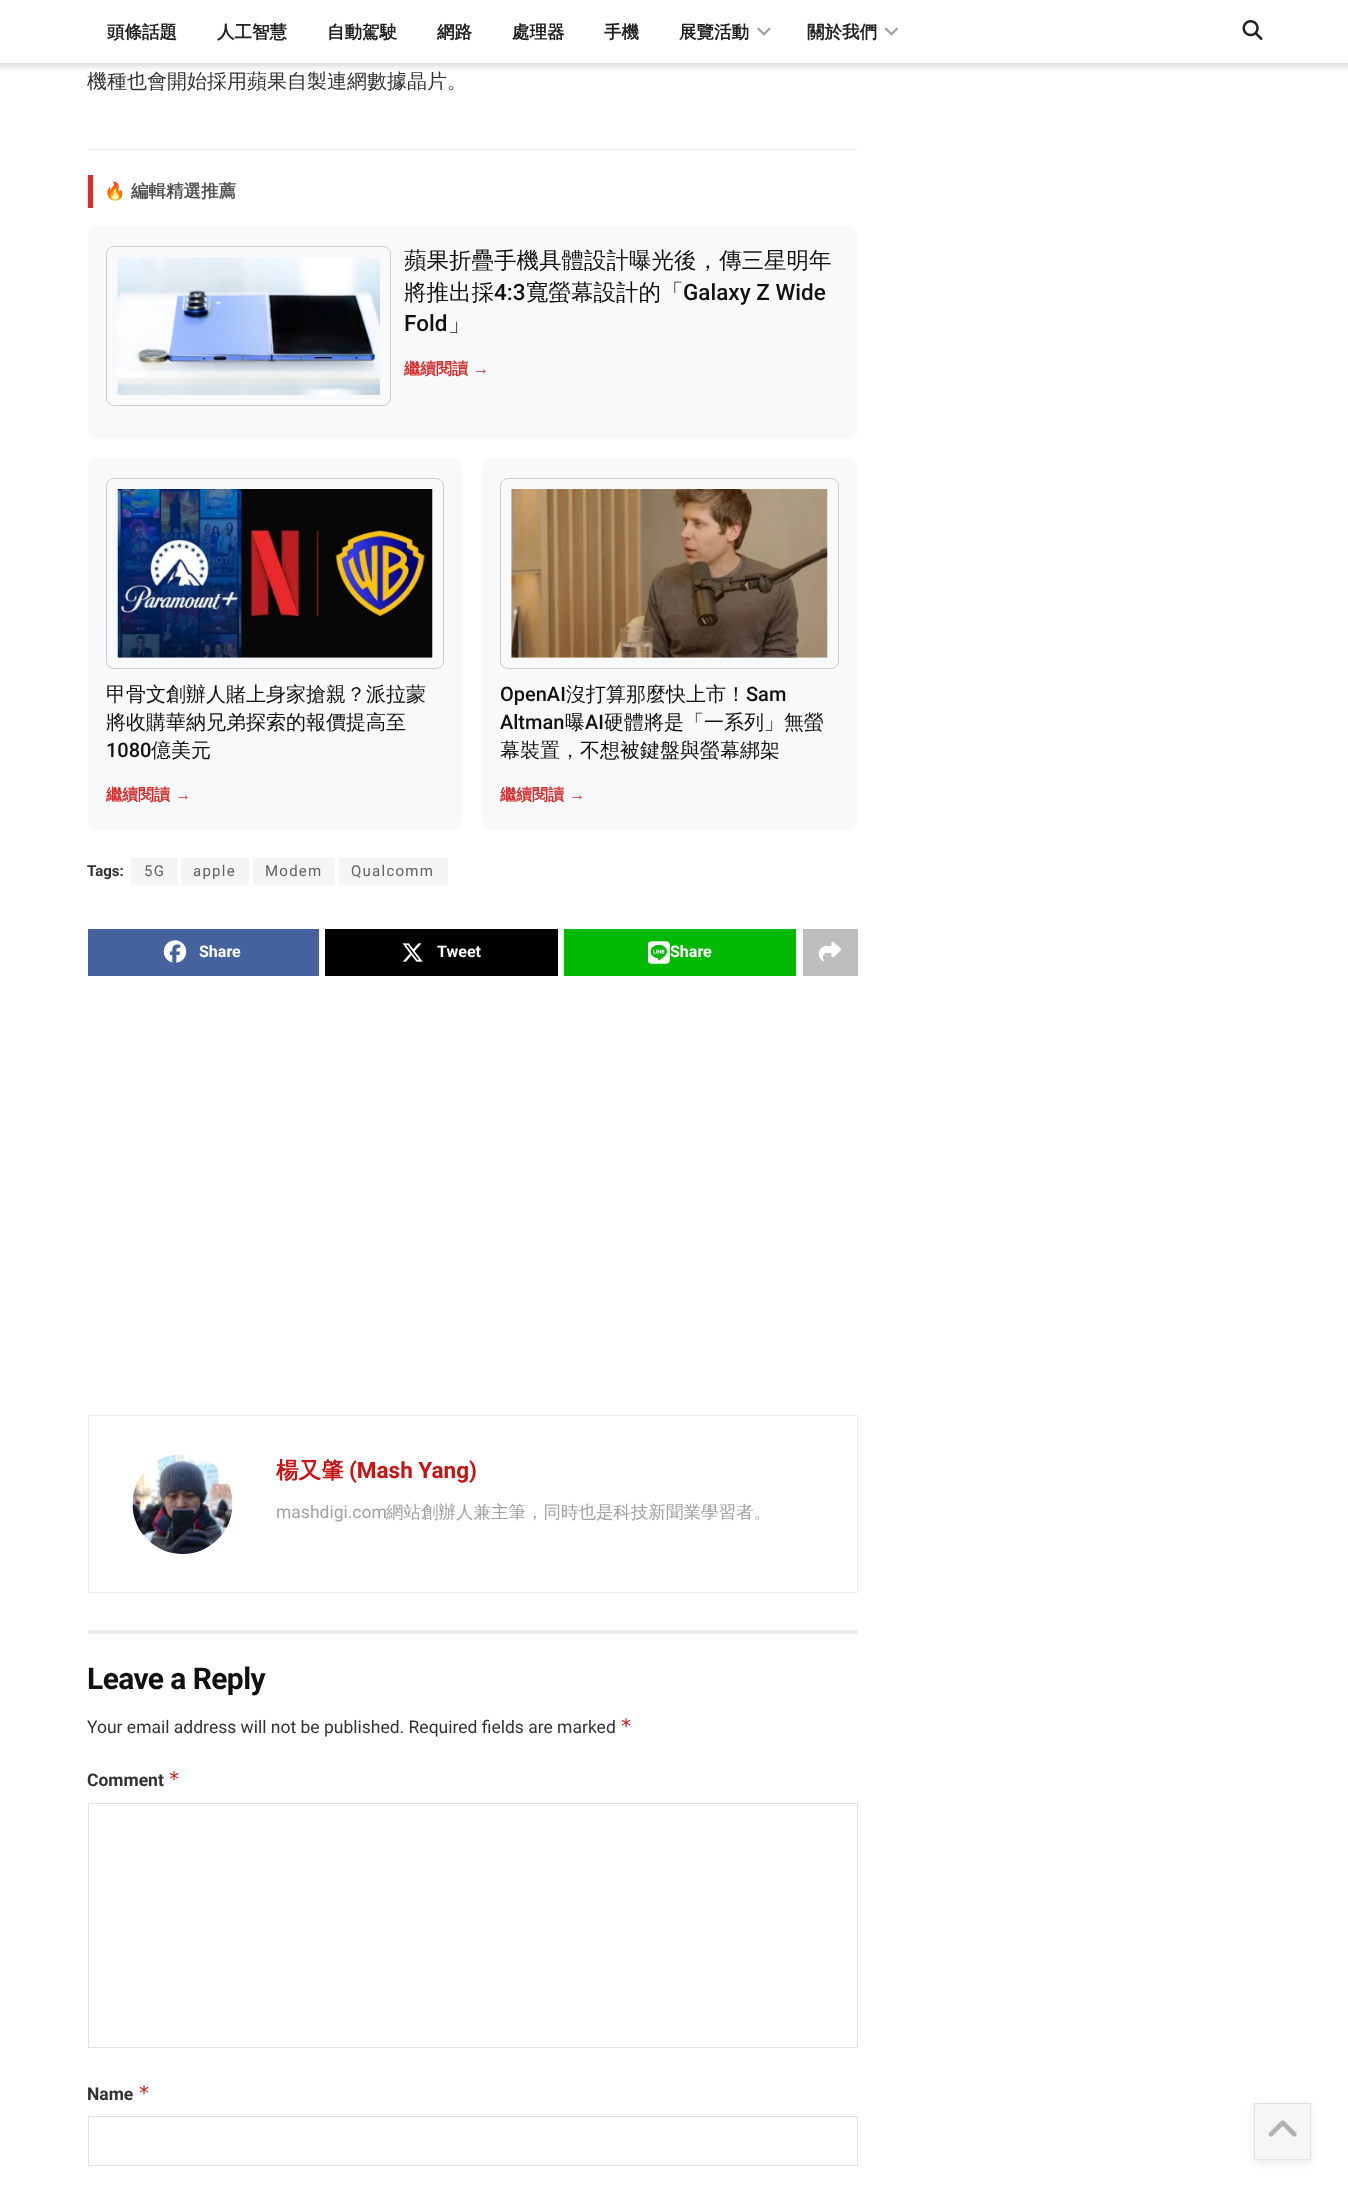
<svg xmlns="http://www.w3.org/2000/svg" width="1348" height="2197">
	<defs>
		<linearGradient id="g1" gradientUnits="userSpaceOnUse" x1="674" y1="62" x2="674" y2="71"><stop offset="0" stop-color="#D9D9D9" /><stop offset="1" stop-color="#FFFFFF" /></linearGradient>
	</defs>
	<rect width="100%" height="100%" fill="#FFFFFF" />
	<g font-family="WenQuanYi Zen Hei" font-size="17.5" font-weight="700" fill="#212121">
		<text x="107" y="38">頭條話題</text>
		<text x="217" y="38">人工智慧</text>
		<text x="327" y="38">自動駕駛</text>
		<text x="437" y="38">網路</text>
		<text x="512" y="38">處理器</text>
		<text x="604" y="38">手機</text>
		<text x="679" y="38">展覽活動</text>
	</g>
	<image x="757" y="27" width="14" height="9" href="assets/img1.png" />
	<text x="807" y="38" font-family="WenQuanYi Zen Hei" font-size="17.5" font-weight="700" fill="#212121">關於我們</text>
	<image x="884" y="27" width="14" height="9" href="assets/img2.png" />
	<image x="1242" y="20" width="21" height="20" href="assets/img3.png" />
	<rect x="0" y="63" width="1348" height="7" fill="url(#g1)" />
	<text x="87" y="88" font-family="WenQuanYi Zen Hei" font-size="20" font-weight="500" fill="#323232">機種也會開始採用蘋果自製連網數據晶片。</text>
	<rect x="88" y="149" width="770" height="1" fill="#EEEEEE" />
	<rect x="88" y="175" width="5" height="33" fill="#D32F2F" />
	<text x="104" y="197" font-family="Noto Color Emoji" font-size="17.5" font-weight="700" fill="#555555">🔥</text>
	<text x="131" y="197" font-family="WenQuanYi Zen Hei" font-size="17.5" font-weight="700" fill="#555555">編輯精選推薦</text>
	<rect x="88" y="226" width="770" height="213" rx="10" fill="#F8F9FA" />
	<rect x="106.5" y="246.5" width="284" height="159" rx="7.5" fill="none" stroke="#CCCCCC" />
	<image x="117" y="258" width="263" height="137" href="assets/img4.png" />
	<g font-family="WenQuanYi Zen Hei" font-size="22.5" font-weight="500" fill="#111111">
		<text x="404" y="268">蘋果折疊手機具體設計曝光後，傳三星明年</text>
		<text x="404" y="300">將推出採</text>
	</g>
	<text x="494" y="300" font-family="Roboto" font-size="22.5" font-weight="500" fill="#111111">4:3</text>
	<text x="526" y="300" font-family="WenQuanYi Zen Hei" font-size="22.5" font-weight="500" fill="#111111">寬螢幕設計的「</text>
	<g font-family="Roboto" font-size="22.5" font-weight="500" fill="#111111">
		<text x="683" y="300">Galaxy Z Wide</text>
		<text x="404" y="331">Fold</text>
	</g>
	<text x="448" y="331" font-family="WenQuanYi Zen Hei" font-size="22.5" font-weight="500" fill="#111111">」</text>
	<text x="404" y="374" font-family="WenQuanYi Zen Hei" font-size="16" font-weight="700" fill="#D32F2F">繼續閱讀</text>
	<text x="473" y="374" font-family="Liberation Sans" font-size="16" font-weight="700" fill="#D32F2F">→</text>
	<rect x="88" y="458" width="375" height="372" rx="10" fill="#F8F9FA" />
	<rect x="106.5" y="478.5" width="337" height="190" rx="7.5" fill="none" stroke="#CCCCCC" />
	<image x="117" y="489" width="316" height="169" href="assets/img5.png" />
	<g font-family="WenQuanYi Zen Hei" font-size="20" font-weight="500" fill="#111111">
		<text x="106" y="701">甲骨文創辦人賭上身家搶親？派拉蒙</text>
		<text x="106" y="729">將收購華納兄弟探索的報價提高至</text>
	</g>
	<text x="106" y="757" font-family="Roboto" font-size="20" font-weight="500" fill="#111111">1080</text>
	<text x="151" y="757" font-family="WenQuanYi Zen Hei" font-size="20" font-weight="500" fill="#111111">億美元</text>
	<text x="106" y="800" font-family="WenQuanYi Zen Hei" font-size="16" font-weight="700" fill="#D32F2F">繼續閱讀</text>
	<text x="175" y="800" font-family="Liberation Sans" font-size="16" font-weight="700" fill="#D32F2F">→</text>
	<rect x="481" y="458" width="377" height="372" rx="10" fill="#F8F9FA" />
	<rect x="500.5" y="478.5" width="338" height="190" rx="7.5" fill="none" stroke="#CCCCCC" />
	<image x="511" y="489" width="317" height="169" href="assets/img6.png" />
	<text x="500" y="701" font-family="Roboto" font-size="20" font-weight="500" fill="#111111">OpenAI</text>
	<text x="566" y="701" font-family="WenQuanYi Zen Hei" font-size="20" font-weight="500" fill="#111111">沒打算那麼快上市！</text>
	<g font-family="Roboto" font-size="20" font-weight="500" fill="#111111">
		<text x="746" y="701">Sam</text>
		<text x="500" y="729">Altman</text>
	</g>
	<text x="565" y="729" font-family="WenQuanYi Zen Hei" font-size="20" font-weight="500" fill="#111111">曝</text>
	<text x="585" y="729" font-family="Roboto" font-size="20" font-weight="500" fill="#111111">AI</text>
	<g font-family="WenQuanYi Zen Hei" font-size="20" font-weight="500" fill="#111111">
		<text x="604" y="729">硬體將是「一系列」無螢</text>
		<text x="500" y="757">幕裝置，不想被鍵盤與螢幕綁架</text>
	</g>
	<text x="500" y="800" font-family="WenQuanYi Zen Hei" font-size="16" font-weight="700" fill="#D32F2F">繼續閱讀</text>
	<text x="569" y="800" font-family="Liberation Sans" font-size="16" font-weight="700" fill="#D32F2F">→</text>
	<text x="87" y="876" font-family="Roboto" font-size="15" font-weight="700" fill="#323232">Tags:</text>
	<rect x="131" y="858" width="47" height="27" fill="#F5F5F5" />
	<text x="144" y="876" font-family="Roboto" font-size="15" letter-spacing="1.25" fill="#616161">5G</text>
	<rect x="181" y="858" width="68" height="27" fill="#F5F5F5" />
	<text x="193" y="876" font-family="Roboto" font-size="15" letter-spacing="1.25" fill="#616161">apple</text>
	<rect x="253" y="858" width="82" height="27" fill="#F5F5F5" />
	<text x="265" y="876" font-family="Roboto" font-size="15" letter-spacing="1.25" fill="#616161">Modem</text>
	<rect x="339" y="858" width="109" height="27" fill="#F5F5F5" />
	<text x="351" y="876" font-family="Roboto" font-size="15" letter-spacing="1.25" fill="#616161">Qualcomm</text>
	<rect x="88" y="929" width="231" height="47" fill="#45629F" />
	<image x="163" y="940" width="24" height="23" href="assets/img7.png" />
	<text x="199" y="957" font-family="Roboto" font-size="16" font-weight="700" fill="#FFFFFF">Share</text>
	<rect x="325" y="929" width="233" height="47" fill="#000000" />
	<image x="402" y="943" width="21" height="19" href="assets/img8.png" />
	<text x="437" y="957" font-family="Roboto" font-size="16" font-weight="700" fill="#FFFFFF">Tweet</text>
	<rect x="564" y="929" width="232" height="47" fill="#00B900" />
	<image x="648" y="941" width="22" height="23" href="assets/img9.png" />
	<text x="670" y="957" font-family="Roboto" font-size="16" font-weight="700" fill="#FFFFFF">Share</text>
	<rect x="803" y="929" width="55" height="47" fill="#BDBDBD" />
	<image x="818" y="941" width="24" height="21" href="assets/img10.png" />
	<rect x="88.5" y="1415.5" width="769" height="177" fill="none" stroke="#EEEEEE" />
	<image x="132" y="1454" width="101" height="100" href="assets/img11.png" />
	<text x="276" y="1478" font-family="WenQuanYi Zen Hei" font-size="22.5" font-weight="700" fill="#C91212">楊又肇</text>
	<text x="349" y="1478" font-family="Roboto" font-size="22.5" font-weight="700" fill="#C91212">(Mash Yang)</text>
	<text x="276" y="1518" font-family="Roboto" font-size="17.5" fill="#A0A0A0">mashdigi.com</text>
	<text x="386" y="1518" font-family="WenQuanYi Zen Hei" font-size="17.5" font-weight="500" fill="#A0A0A0">網站創辦人兼主筆，同時也是科技新聞業學習者。</text>
	<rect x="88" y="1630" width="770" height="4" fill="#EEEEEE" />
	<text x="87" y="1689" font-family="Roboto" font-size="30" font-weight="700" letter-spacing="-0.6" fill="#111111">Leave a Reply</text>
	<text x="87" y="1733" font-family="Roboto" font-size="17.5" fill="#323232">Your email address will not be published. Required fields are marked</text>
	<text x="620" y="1733" font-family="DejaVu Sans Mono" font-size="20" fill="#C91212">*</text>
	<text x="87" y="1786" font-family="Roboto" font-size="17.5" font-weight="700" fill="#323232">Comment</text>
	<text x="168" y="1786" font-family="DejaVu Sans Mono" font-size="20" fill="#C91212">*</text>
	<rect x="88.5" y="1803.5" width="769" height="244" fill="none" stroke="#E0E0E0" />
	<text x="87" y="2100" font-family="Roboto" font-size="17.5" font-weight="700" fill="#323232">Name</text>
	<text x="138" y="2100" font-family="DejaVu Sans Mono" font-size="20" fill="#C91212">*</text>
	<rect x="88.5" y="2116.5" width="769" height="49" fill="none" stroke="#E0E0E0" />
	<rect x="1254" y="2105" width="57" height="58" fill="#333333" fill-opacity="0.1" filter="blur(4px)" />
	<rect x="1254.5" y="2103.5" width="56" height="56" fill="#F6F6F6" stroke="#E1E1E1" />
	<image x="1268" y="2120" width="29" height="17" href="assets/img12.png" />
</svg>
